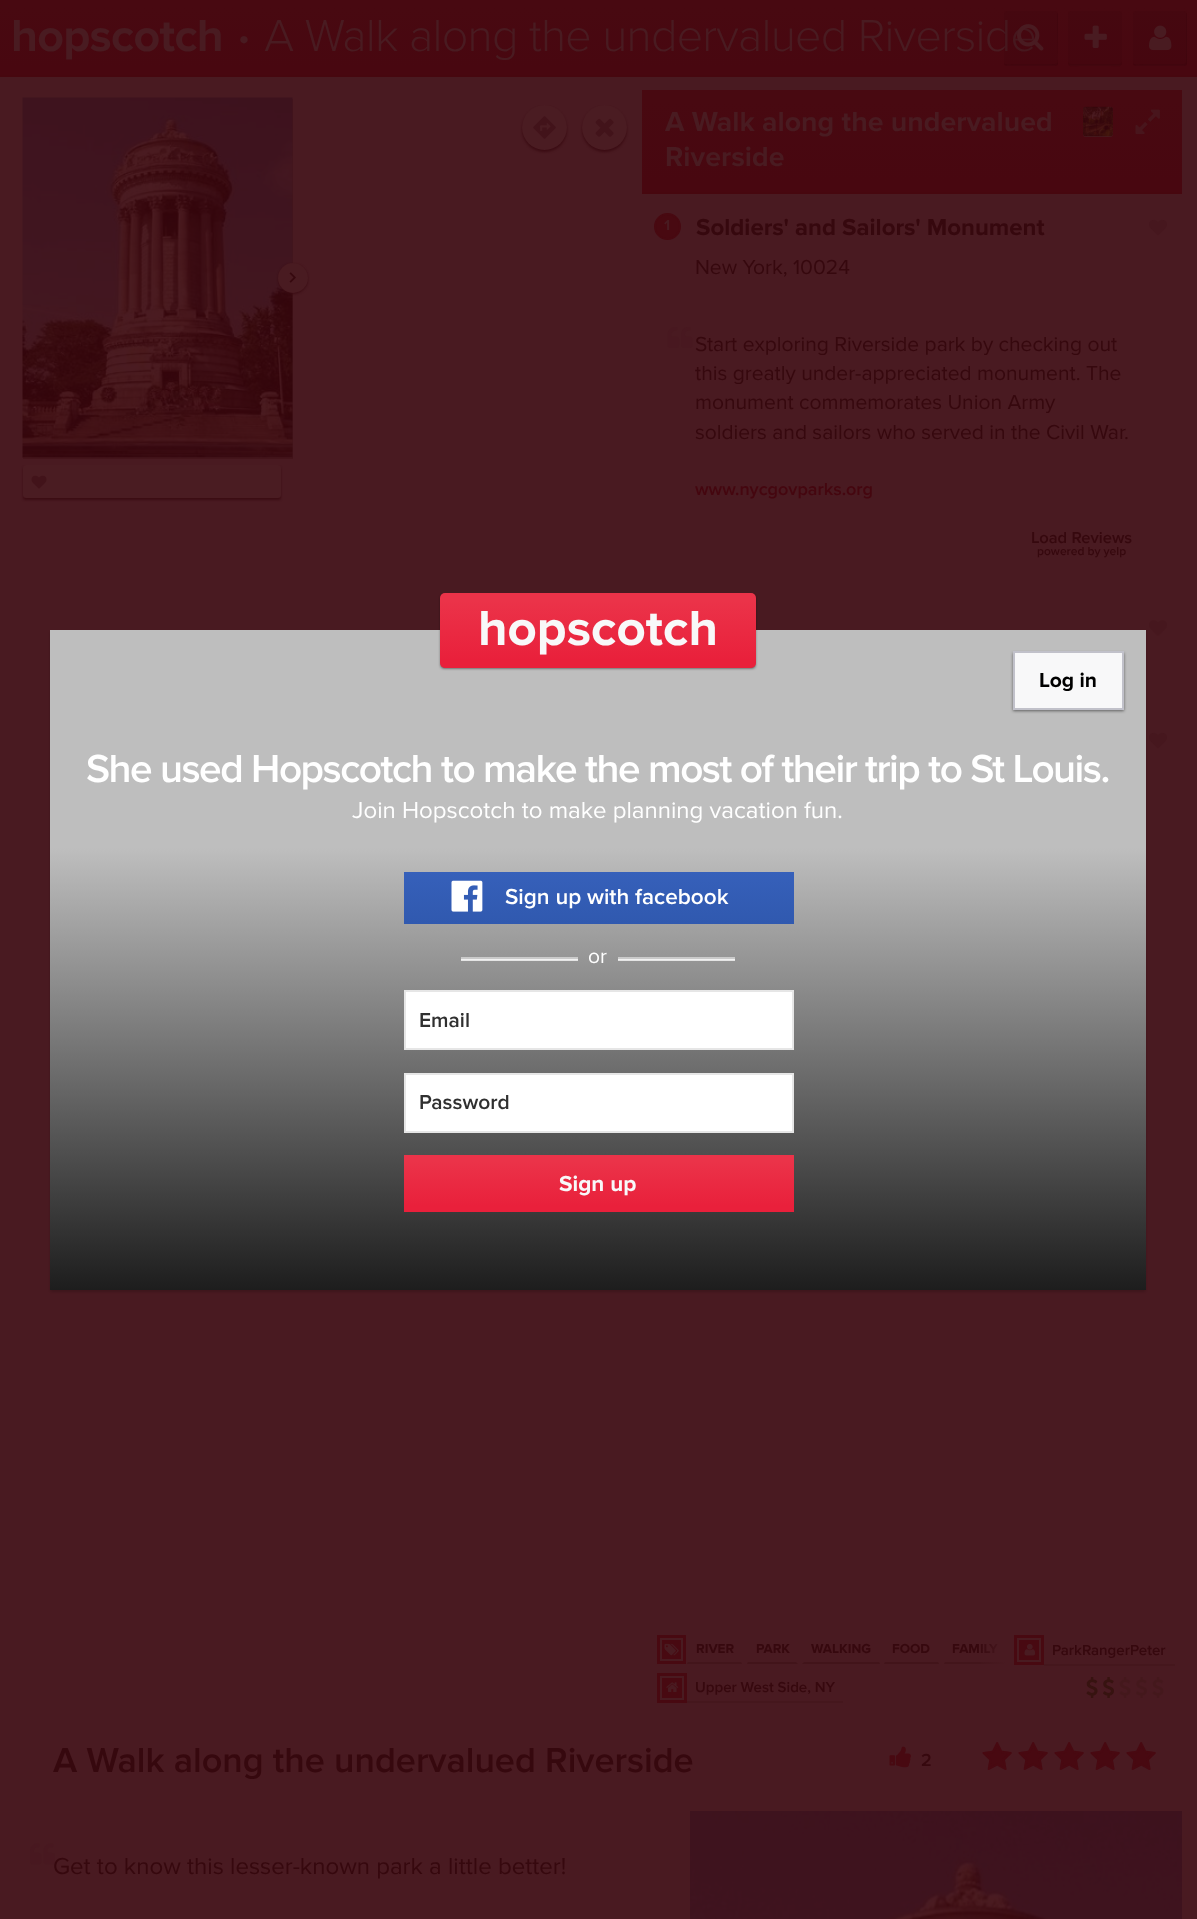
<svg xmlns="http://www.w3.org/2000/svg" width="1197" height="1919">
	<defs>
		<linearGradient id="g1" gradientUnits="userSpaceOnUse" x1="599" y1="75" x2="599" y2="0"><stop offset="0.1" stop-color="#480710" /><stop offset="0.9" stop-color="#480911" /></linearGradient>
		<linearGradient id="g2" gradientUnits="userSpaceOnUse" x1="912" y1="192" x2="912" y2="90"><stop offset="0.1" stop-color="#480710" /><stop offset="0.9" stop-color="#480911" /></linearGradient>
		<linearGradient id="g3" gradientUnits="userSpaceOnUse" x1="977" y1="1650" x2="1007" y2="1650"><stop offset="0" stop-color="#491A21" stop-opacity="0" /><stop offset="1" stop-color="#491A21" /></linearGradient>
		<linearGradient id="g4" gradientUnits="userSpaceOnUse" x1="598" y1="630" x2="598" y2="1290"><stop offset="0" stop-color="#BEBEBE" /><stop offset="0.33" stop-color="#BEBEBE" /><stop offset="1" stop-color="#1D1D1D" /></linearGradient>
		<linearGradient id="g5" gradientUnits="userSpaceOnUse" x1="598" y1="668" x2="598" y2="593"><stop offset="0.1" stop-color="#E9203B" /><stop offset="0.9" stop-color="#EB3349" /></linearGradient>
		<linearGradient id="g6" gradientUnits="userSpaceOnUse" x1="599" y1="872" x2="599" y2="924"><stop offset="0" stop-color="#3660BA" /><stop offset="1" stop-color="#3059AF" /></linearGradient>
		<linearGradient id="g7" gradientUnits="userSpaceOnUse" x1="599" y1="1212" x2="599" y2="1155"><stop offset="0.1" stop-color="#E9203B" /><stop offset="0.9" stop-color="#EB3349" /></linearGradient>
	</defs>
	<rect width="100%" height="100%" fill="#491A21" />
	<rect x="0" y="0" width="1197" height="75" fill="url(#g1)" />
	<rect x="0" y="75" width="1197" height="2" fill="#47070F" />
	<g font-family="Proxima Nova" font-size="46.5" font-weight="700" letter-spacing="-0.75" fill="#491B21">
		<text x="11" y="51">hopscotch</text>
		<text x="238" y="51">·</text>
	</g>
	<text x="264" y="51" font-family="Proxima Nova" font-size="46.5" font-weight="300" letter-spacing="-0.75" fill="#491B21">A Walk along the undervalued Riverside</text>
	<path d="M1004 63C1004 65 1005 66 1007 66H1055C1057 66 1058 65 1058 63V15L1057 13L1058 54C1058 66 1059 64 1046 64H1014C1014 64 1006 66 1004 63Z" fill="#33050B" fill-opacity="0.25" />
	<rect x="1004" y="11" width="54" height="54" rx="3" fill="#33050B" fill-opacity="0.15" />
	<image x="1017" y="24" width="27" height="27" href="assets/img1.png" />
	<path d="M1068 62C1068 68 1073 66 1079 66H1111C1117 66 1122 68 1122 62C1122 63 1121 64 1119 64H1071C1069 64 1068 63 1068 62Z" fill="#43070F" />
	<rect x="1068" y="11" width="54" height="54" rx="3" fill="#33050B" fill-opacity="0.15" />
	<image x="1084" y="25" width="23" height="23" href="assets/img2.png" />
	<path d="M1133 63C1133 65 1134 66 1136 66H1184C1186 66 1187 65 1187 63V15L1186 13V54C1186 66 1188 64 1176 64H1144C1143 64 1135 66 1133 63Z" fill="#33050B" fill-opacity="0.25" />
	<rect x="1133" y="11" width="54" height="54" rx="3" fill="#33050B" fill-opacity="0.15" />
	<image x="1149" y="25" width="23" height="26" href="assets/img3.png" />
	<path d="M23 458V459H293V99H292V458Z" fill="#43141A" />
	<image x="22" y="97" width="271" height="361" href="assets/img4.png" />
	<rect x="278" y="264" width="30" height="30" rx="15" fill="#3B0C13" filter="blur(1px)" />
	<circle cx="293" cy="278" r="15" fill="#491B21" />
	<image x="289" y="272" width="7" height="11" href="assets/img5.png" />
	<rect x="23" y="467" width="258" height="33" rx="3" fill="#3B0C13" filter="blur(1px)" />
	<rect x="23" y="465" width="258" height="33" rx="3" fill="#4A1C22" />
	<image x="31" y="475" width="16" height="14" href="assets/img6.png" />
	<rect x="522" y="107" width="45" height="45" rx="22.5" fill="#3B0C13" filter="blur(1px)" />
	<circle cx="544.5" cy="127.5" r="22.5" fill="#4A1C22" />
	<image x="533" y="116" width="23" height="23" href="assets/img7.png" />
	<rect x="582" y="107" width="45" height="45" rx="22.5" fill="#3B0C13" filter="blur(1px)" />
	<circle cx="604.5" cy="127.5" r="22.5" fill="#4A1C22" />
	<image x="595" y="118" width="19" height="19" href="assets/img8.png" />
	<rect x="642" y="90" width="540" height="102" fill="url(#g2)" />
	<rect x="642" y="192" width="540" height="2" fill="#47070F" />
	<text x="665" y="131" font-family="Proxima Nova" font-size="28.5" font-weight="700" fill="#491B21">A Walk along the undervalued</text>
	<rect x="1083" y="107" width="30" height="30" rx="3" fill="#491B21" />
	<image x="1083" y="106" width="30" height="31" href="assets/img9.png" />
	<image x="1135" y="109" width="25" height="26" href="assets/img10.png" />
	<text x="665" y="166" font-family="Proxima Nova" font-size="28.5" font-weight="700" fill="#491B21">Riverside</text>
	<circle cx="667.5" cy="226.5" r="12.5" fill="#480911" stroke="#480911" stroke-width="2" />
	<text x="664" y="230" font-family="Proxima Nova" font-size="15" font-weight="700" fill="#491B21">1</text>
	<text x="696" y="235" font-family="Proxima Nova" font-size="24" font-weight="700" fill="#36080E">Soldiers' and Sailors' Monument</text>
	<image x="1149" y="219" width="18" height="17" href="assets/img11.png" />
	<text x="695" y="274" font-family="Proxima Nova" font-size="21" fill="#36080E">New York, 10024</text>
	<image x="667" y="327" width="26" height="21" href="assets/img12.png" />
	<g font-family="Proxima Nova" font-size="21" fill="#36080E">
		<text x="695" y="351">Start exploring Riverside park by checking out</text>
		<text x="695" y="380">this greatly under-appreciated monument. The</text>
		<text x="695" y="409">monument commemorates Union Army</text>
		<text x="695" y="439">soldiers and sailors who served in the Civil War.</text>
	</g>
	<text x="695" y="495" font-family="Proxima Nova" font-size="18" font-weight="600" fill="#45060F">www.nycgovparks.org</text>
	<text x="1031" y="543" font-family="Proxima Nova" font-size="16.5" font-weight="600" fill="#36080E">Load Reviews</text>
	<text x="1037" y="555" font-family="Proxima Nova" font-size="12" font-weight="600" fill="#36080E">powered by yelp</text>
	<image x="1149" y="620" width="18" height="16" href="assets/img13.png" />
	<image x="1149" y="732" width="18" height="17" href="assets/img11.png" />
	<rect x="657" y="1635" width="29" height="29" fill="#480911" />
	<rect x="661" y="1639" width="21" height="21" fill="none" stroke="#491B21" stroke-width="2" />
	<image x="664" y="1643" width="15" height="13" href="assets/img14.png" />
	<path d="M742 1664H687L688 1662H741Z" fill="#43151B" />
	<text x="696" y="1653" font-family="Proxima Nova" font-size="13.5" font-weight="700" fill="#36080E">RIVER</text>
	<path d="M798 1664H747L748 1662H796Z" fill="#33050B" fill-opacity="0.3" />
	<text x="756" y="1653" font-family="Proxima Nova" font-size="13.5" font-weight="700" fill="#36080E">PARK</text>
	<path d="M880 1664H802L804 1662H879Z" fill="#33050B" fill-opacity="0.3" />
	<text x="811" y="1653" font-family="Proxima Nova" font-size="13.5" font-weight="700" fill="#36080E">WALKING</text>
	<path d="M939 1664H884L885 1662H938Z" fill="#33050B" fill-opacity="0.3" />
	<text x="892" y="1653" font-family="Proxima Nova" font-size="13.5" font-weight="700" fill="#36080E">FOOD</text>
	<path d="M1006 1664H944L945 1662H1005Z" fill="#43151B" />
	<text x="952" y="1653" font-family="Proxima Nova" font-size="13.5" font-weight="700" fill="#36080E">FAMILY</text>
	<rect x="981" y="1644" width="25" height="20" fill="url(#g3)" />
	<rect x="1014" y="1635" width="30" height="30" fill="#480911" />
	<rect x="1018" y="1639" width="22" height="22" fill="none" stroke="#491B21" stroke-width="2" />
	<image x="1024" y="1643" width="12" height="13" href="assets/img15.png" />
	<rect x="1044" y="1664" width="131" height="2" fill="#45171D" />
	<text x="1052" y="1655" font-family="Proxima Nova" font-size="15" font-weight="600" fill="#36080E">ParkRangerPeter</text>
	<rect x="657" y="1673" width="30" height="30" fill="#480911" />
	<rect x="661" y="1677" width="22" height="22" fill="none" stroke="#491B21" stroke-width="2" />
	<image x="666" y="1682" width="13" height="10" href="assets/img16.png" />
	<rect x="687" y="1701" width="156" height="2" fill="#45171D" />
	<text x="695" y="1692" font-family="Proxima Nova" font-size="15" font-weight="600" fill="#36080E">Upper West Side, NY</text>
	<image x="1086" y="1677" width="12" height="21" href="assets/img17.png" />
	<image x="1103" y="1677" width="11" height="21" href="assets/img18.png" />
	<image x="1086" y="1677" width="12" height="21" href="assets/img19.png" />
	<image x="1103" y="1677" width="11" height="21" href="assets/img20.png" />
	<image x="1119" y="1677" width="12" height="21" href="assets/img21.png" />
	<image x="1136" y="1677" width="11" height="21" href="assets/img22.png" />
	<image x="1152" y="1677" width="12" height="21" href="assets/img21.png" />
	<text x="53" y="1772" font-family="Proxima Nova" font-size="36" font-weight="600" fill="#36080E">A Walk along the undervalued Riverside</text>
	<image x="889" y="1746" width="22" height="22" href="assets/img23.png" />
	<text x="921" y="1766" font-family="Proxima Nova" font-size="18" font-weight="600" letter-spacing="1" fill="#36080E">2</text>
	<image x="982" y="1742" width="30" height="28" href="assets/img24.png" />
	<image x="1018" y="1742" width="30" height="28" href="assets/img24.png" />
	<image x="1054" y="1742" width="30" height="28" href="assets/img24.png" />
	<image x="1090" y="1742" width="30" height="28" href="assets/img24.png" />
	<image x="1126" y="1742" width="30" height="28" href="assets/img24.png" />
	<image x="982" y="1742" width="30" height="28" href="assets/img25.png" />
	<image x="1018" y="1742" width="30" height="28" href="assets/img25.png" />
	<image x="1054" y="1742" width="30" height="28" href="assets/img25.png" />
	<image x="1090" y="1742" width="30" height="28" href="assets/img25.png" />
	<image x="1126" y="1742" width="30" height="28" href="assets/img25.png" />
	<text x="53" y="1874" font-family="Proxima Nova" font-size="24" fill="#36080E">Get to know this lesser-known park a little better!</text>
	<image x="30" y="1843" width="25" height="22" href="assets/img26.png" />
	<image x="690" y="1811" width="492" height="108" href="assets/img27.png" />
	<rect x="50" y="632" width="1096" height="660" rx="3" fill="#000000" fill-opacity="0.15" filter="blur(1px)" />
	<rect x="50" y="630" width="1096" height="660" fill="url(#g4)" />
	<rect x="441" y="596" width="314" height="72" rx="3" fill="#000000" fill-opacity="0.75" filter="blur(1.5px)" />
	<rect x="440" y="593" width="316" height="75" rx="5" fill="url(#g5)" />
	<text x="478" y="645" font-family="Proxima Nova" font-size="51" font-weight="700" fill="#F8F8F9">hopscotch</text>
	<rect x="1013" y="653" width="111" height="58" fill="#000000" fill-opacity="0.5" filter="blur(1.5px)" />
	<rect x="1014" y="652" width="109" height="57" fill="#F8F8F9" stroke="#C1C1CA" stroke-width="2" />
	<text x="1039" y="687" font-family="Proxima Nova" font-size="21" font-weight="700" fill="#000000">Log in</text>
	<text x="86" y="782" font-family="Proxima Nova" font-size="40.5" font-weight="600" letter-spacing="-1.5" fill="#FFFFFF">She used Hopscotch to make the most of their trip to St Louis.</text>
	<text x="352" y="818" font-family="Proxima Nova" font-size="24" fill="#FFFFFF">Join Hopscotch to make planning vacation fun.</text>
	<rect x="404" y="872" width="390" height="52" fill="url(#g6)" />
	<image x="451" y="880" width="32" height="32" href="assets/img28.png" />
	<text x="505" y="904" font-family="Proxima Nova" font-size="22.5" font-weight="600" fill="#FFFFFF">Sign up with facebook</text>
	<rect x="461" y="957" width="117" height="3" fill="#CACACA" />
	<rect x="461" y="959" width="117" height="2" fill="#FFFFFF" fill-opacity="0.75" />
	<text x="588" y="963" font-family="Proxima Nova" font-size="21" fill="#FFFFFF">or</text>
	<rect x="618" y="957" width="117" height="3" fill="#CACACA" />
	<rect x="618" y="959" width="117" height="2" fill="#FFFFFF" fill-opacity="0.75" />
	<rect x="405" y="991" width="388" height="58" fill="#FFFFFF" stroke="#E6E6E6" stroke-width="2" />
	<text x="419" y="1027" font-family="Proxima Nova" font-size="21" font-weight="600" fill="#303030">Email</text>
	<rect x="405" y="1074" width="388" height="58" fill="#FFFFFF" stroke="#E6E6E6" stroke-width="2" />
	<text x="419" y="1109" font-family="Proxima Nova" font-size="21" font-weight="600" fill="#303030">Password</text>
	<rect x="404" y="1155" width="390" height="57" fill="url(#g7)" />
	<text x="559" y="1191" font-family="Proxima Nova" font-size="22.5" font-weight="700" fill="#F8F8F9">Sign up</text>
</svg>
